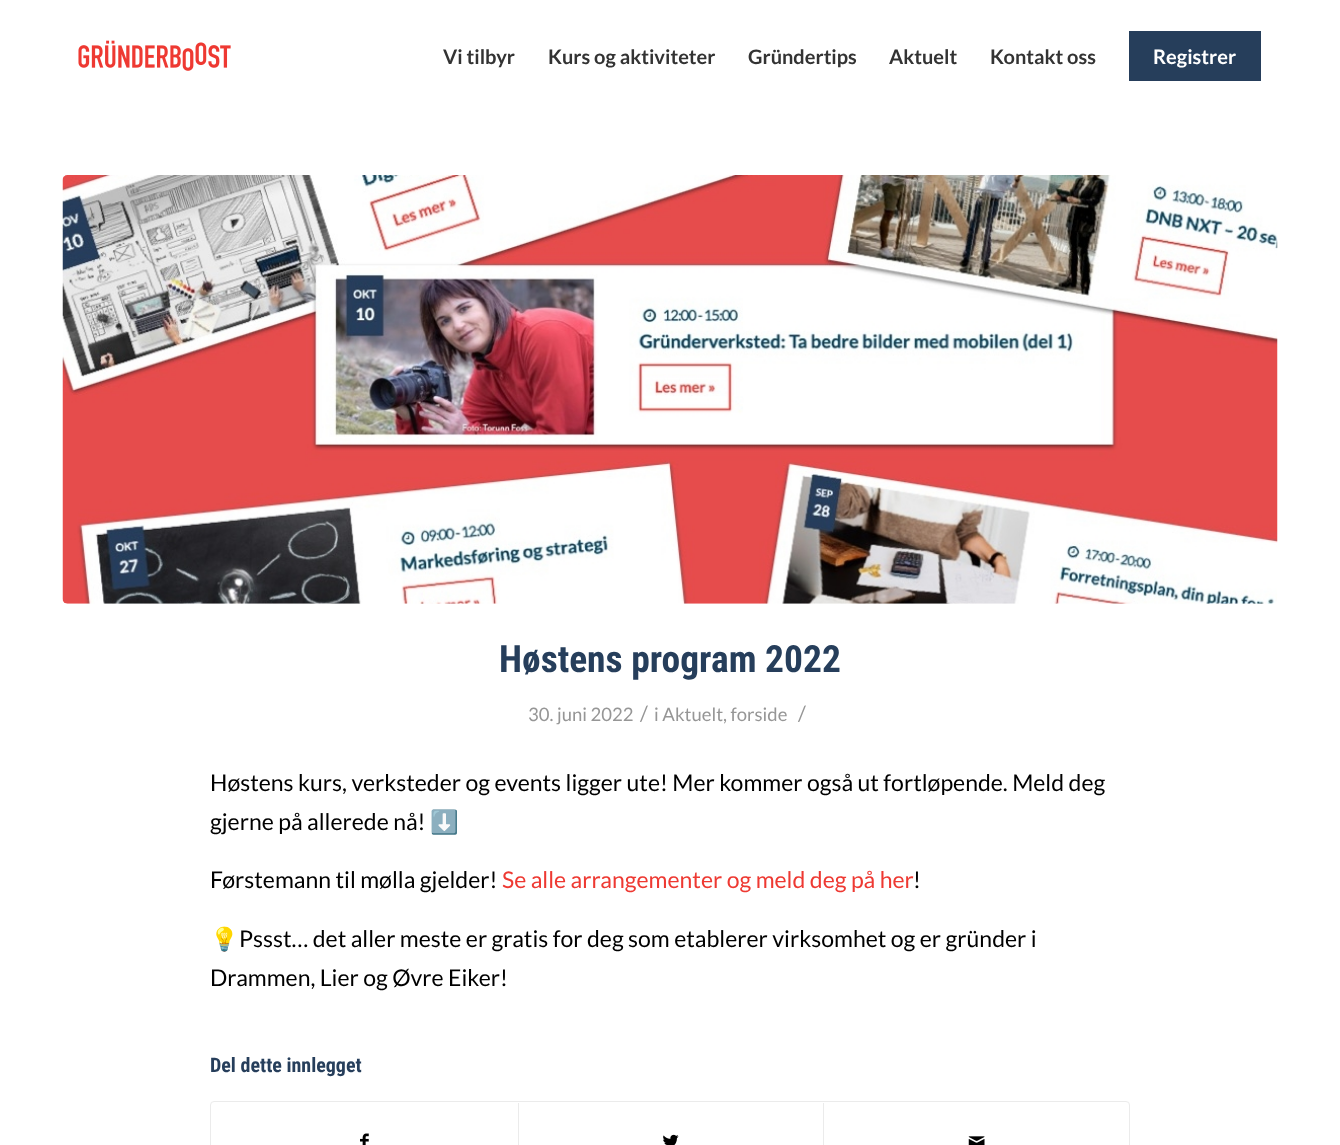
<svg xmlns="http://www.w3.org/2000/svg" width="1340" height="1145">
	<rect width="100%" height="100%" fill="#FFFFFF" />
	<image x="78" y="40" width="153" height="31" href="assets/img1.png" />
	<g font-family="Lato" font-size="20" font-weight="700" fill="#333333">
		<text x="443" y="64">Vi tilbyr</text>
		<text x="548" y="64">Kurs og aktiviteter</text>
		<text x="748" y="64">Gründertips</text>
		<text x="889" y="64">Aktuelt</text>
		<text x="990" y="64">Kontakt oss</text>
	</g>
	<rect x="1129" y="31" width="132" height="50" fill="#263E5B" />
	<text x="1153" y="64" font-family="Lato" font-size="20" font-weight="700" fill="#FFFFFF">Registrer</text>
	<image x="62" y="175" width="1216" height="429" href="assets/img2.png" />
	<text x="499" y="672" font-family="Roboto Condensed" font-size="37.5" font-weight="700" fill="#263E5B">Høstens program 2022</text>
	<text x="528" y="721" font-family="Lato" font-size="18.5" fill="#969696">30. juni 2022</text>
	<text x="640" y="721" font-family="Lato" font-size="21" fill="#969696">/</text>
	<text x="654" y="721" font-family="Lato" font-size="18.5" fill="#969696">i Aktuelt, forside</text>
	<text x="798" y="721" font-family="Lato" font-size="21" fill="#969696">/</text>
	<g font-family="Lato" font-size="23" fill="#000000">
		<text x="210" y="791">Høstens kurs, verksteder og events ligger ute! Mer kommer også ut fortløpende. Meld deg</text>
		<text x="210" y="830">gjerne på allerede nå!</text>
	</g>
	<text x="430" y="830" font-family="Noto Color Emoji" font-size="23" fill="#000000">⬇️</text>
	<text x="210" y="888" font-family="Lato" font-size="23" fill="#000000">Førstemann til mølla gjelder!</text>
	<text x="502" y="888" font-family="Lato" font-size="23" fill="#EE3932">Se alle arrangementer og meld deg på her</text>
	<text x="913" y="888" font-family="Lato" font-size="23" fill="#000000">!</text>
	<text x="210" y="947" font-family="Noto Color Emoji" font-size="23" fill="#000000">💡</text>
	<g font-family="Lato" font-size="23" fill="#000000">
		<text x="239" y="947">Pssst… det aller meste er gratis for deg som etablerer virksomhet og er gründer i</text>
		<text x="210" y="986">Drammen, Lier og Øvre Eiker!</text>
	</g>
	<text x="210" y="1072" font-family="Roboto Condensed" font-size="20" font-weight="700" fill="#263E5B">Del dette innlegget</text>
	<rect x="210.5" y="1101.5" width="919" height="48" rx="3.5" fill="none" stroke="#EBEBEB" />
	<image x="360" y="1133" width="9" height="12" href="assets/img3.png" />
	<rect x="518" y="1103" width="1" height="42" fill="#EBEBEB" />
	<image x="663" y="1134" width="16" height="11" href="assets/img4.png" />
	<rect x="823" y="1103" width="1" height="42" fill="#EBEBEB" />
	<image x="968" y="1136" width="17" height="9" href="assets/img5.png" />
</svg>
